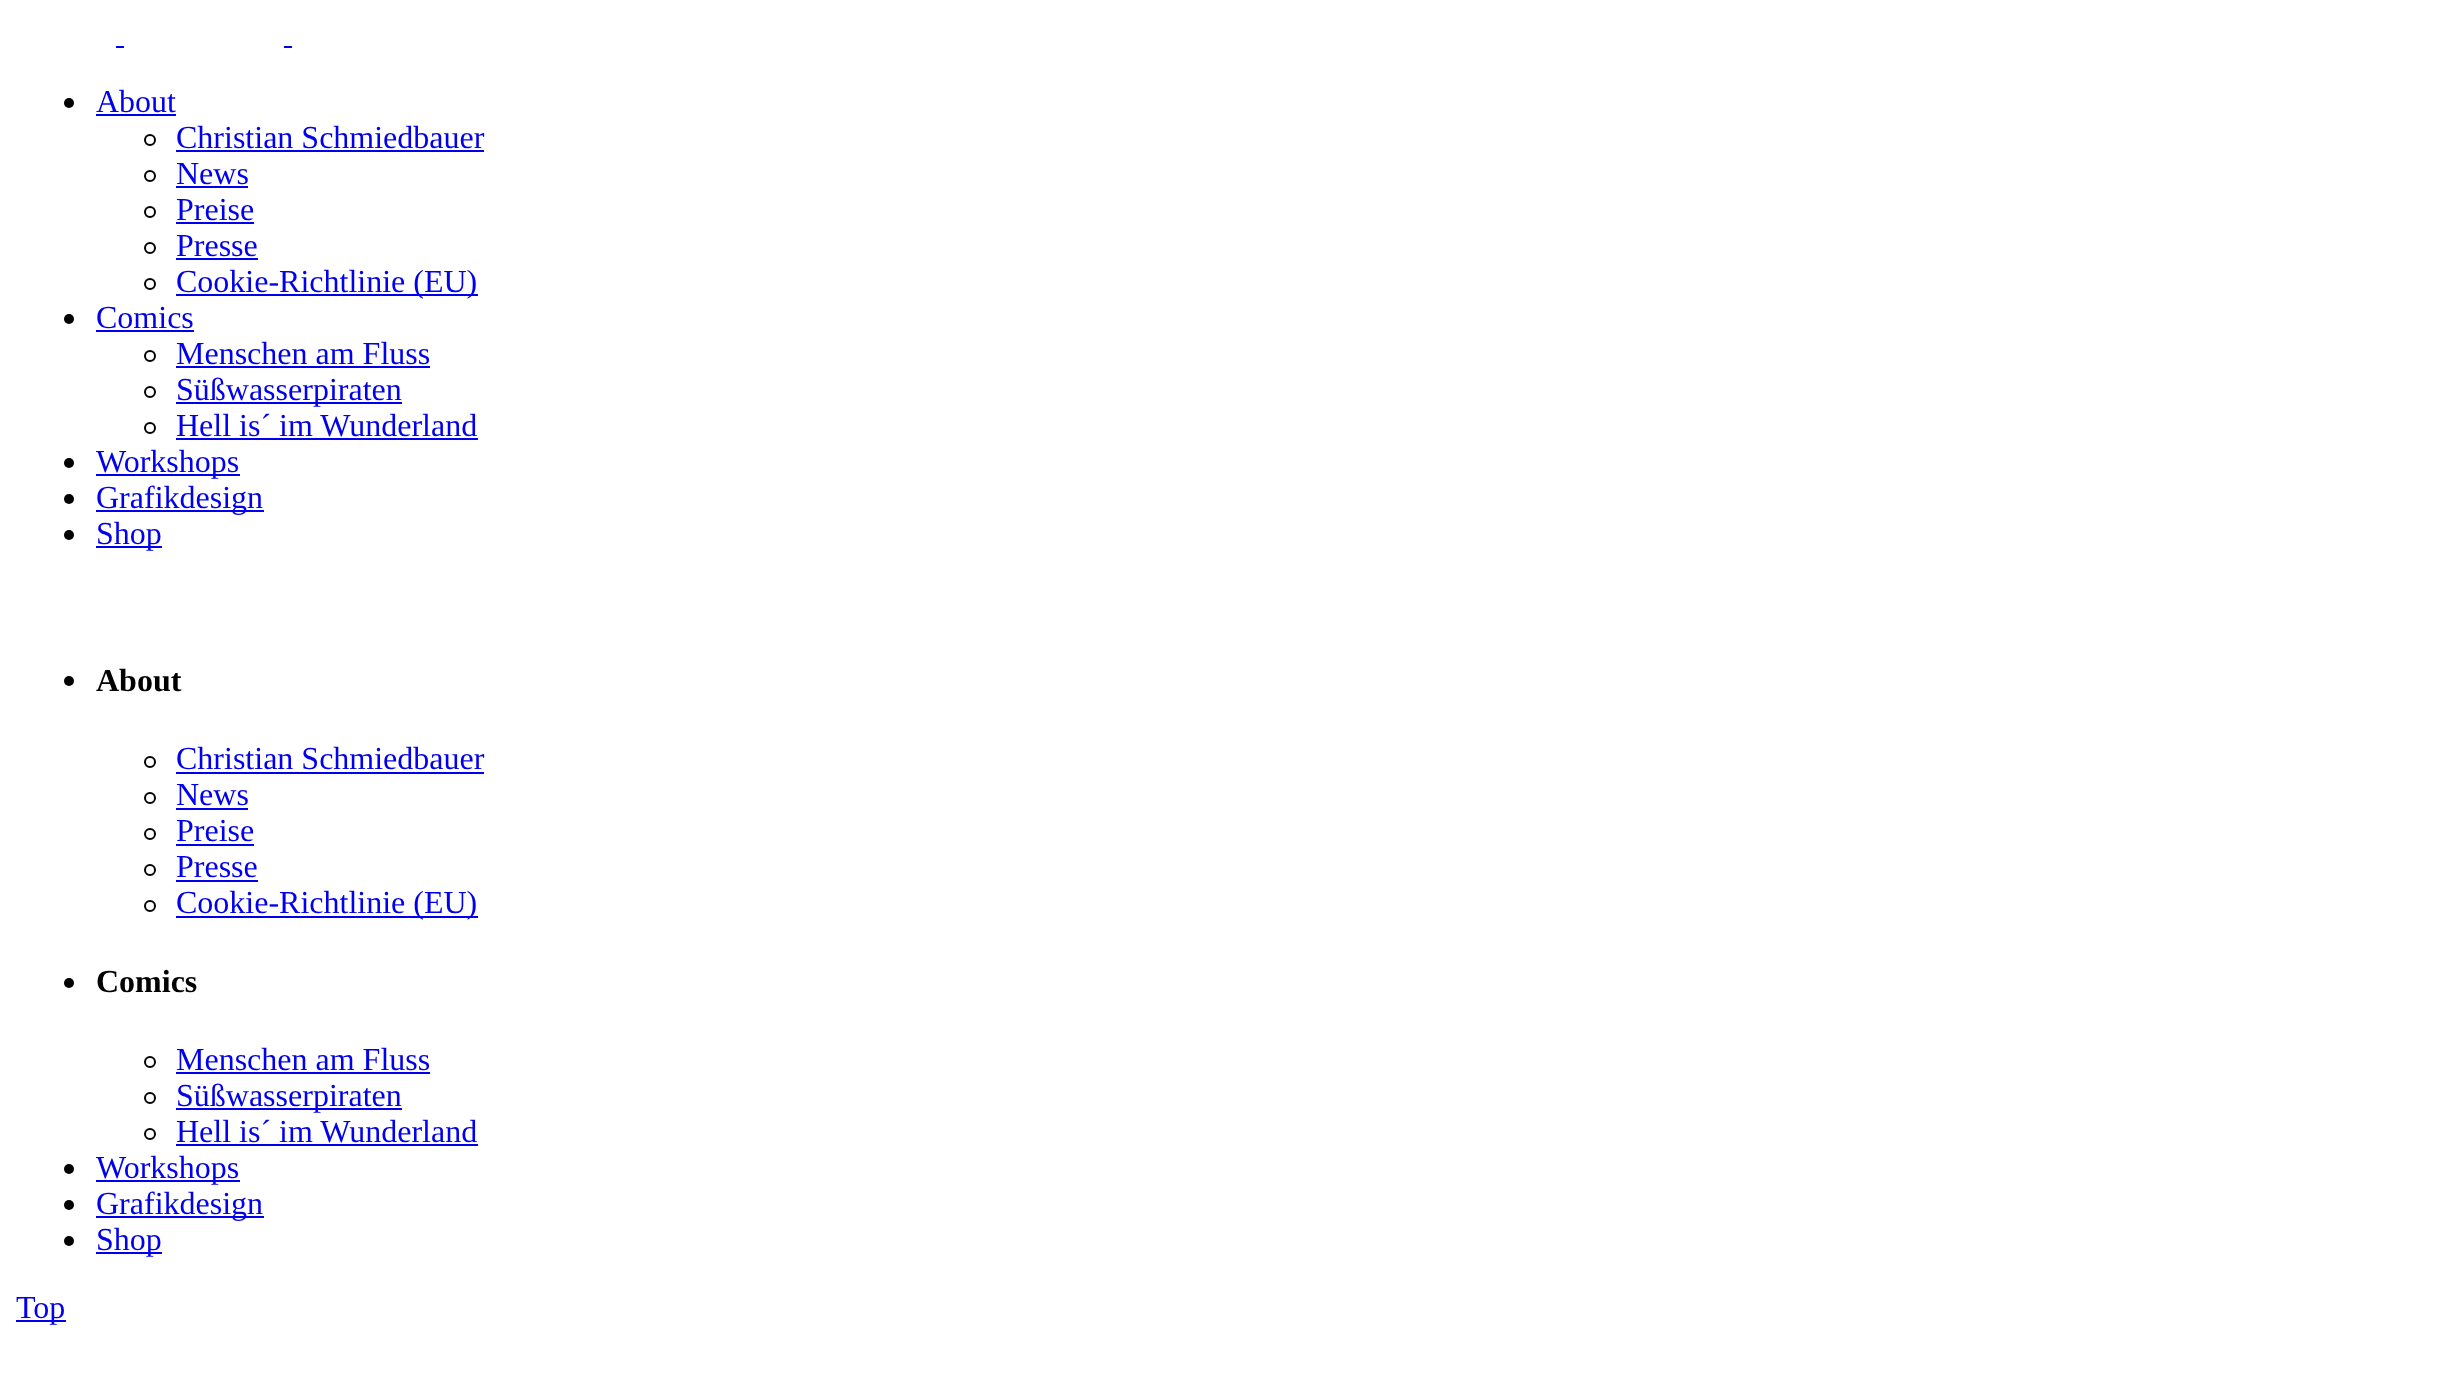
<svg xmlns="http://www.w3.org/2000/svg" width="2462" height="1376">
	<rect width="100%" height="100%" fill="#FFFFFF" />
	<rect x="116" y="46" width="8" height="2" fill="#0000EE" />
	<rect x="284" y="46" width="8" height="2" fill="#0000EE" />
	<circle cx="69" cy="103" r="5" fill="#000000" />
	<text x="96" y="112" font-family="Liberation Serif" font-size="32" fill="#0000EE">About</text>
	<rect x="96" y="114" width="80" height="2" fill="#0000EE" />
	<circle cx="150" cy="140" r="5" fill="none" stroke="#000000" stroke-width="2" />
	<text x="176" y="148" font-family="Liberation Serif" font-size="32" fill="#0000EE">Christian Schmiedbauer</text>
	<rect x="176" y="150" width="308" height="2" fill="#0000EE" />
	<circle cx="150" cy="176" r="5" fill="none" stroke="#000000" stroke-width="2" />
	<text x="176" y="184" font-family="Liberation Serif" font-size="32" fill="#0000EE">News</text>
	<rect x="176" y="186" width="72" height="2" fill="#0000EE" />
	<circle cx="150" cy="212" r="5" fill="none" stroke="#000000" stroke-width="2" />
	<text x="176" y="220" font-family="Liberation Serif" font-size="32" fill="#0000EE">Preise</text>
	<rect x="176" y="222" width="78" height="2" fill="#0000EE" />
	<circle cx="150" cy="248" r="5" fill="none" stroke="#000000" stroke-width="2" />
	<text x="176" y="256" font-family="Liberation Serif" font-size="32" fill="#0000EE">Presse</text>
	<rect x="176" y="258" width="82" height="2" fill="#0000EE" />
	<circle cx="150" cy="284" r="5" fill="none" stroke="#000000" stroke-width="2" />
	<rect x="176" y="294" width="302" height="2" fill="#0000EE" />
	<text x="176" y="292" font-family="Liberation Serif" font-size="32" fill="#0000EE">Cookie-Richtlinie (EU)</text>
	<circle cx="69" cy="319" r="5" fill="#000000" />
	<text x="96" y="328" font-family="Liberation Serif" font-size="32" fill="#0000EE">Comics</text>
	<rect x="96" y="330" width="98" height="2" fill="#0000EE" />
	<circle cx="150" cy="356" r="5" fill="none" stroke="#000000" stroke-width="2" />
	<text x="176" y="364" font-family="Liberation Serif" font-size="32" fill="#0000EE">Menschen am Fluss</text>
	<rect x="176" y="366" width="254" height="2" fill="#0000EE" />
	<circle cx="150" cy="392" r="5" fill="none" stroke="#000000" stroke-width="2" />
	<rect x="176" y="402" width="226" height="2" fill="#0000EE" />
	<text x="176" y="400" font-family="Liberation Serif" font-size="32" fill="#0000EE">Süßwasserpiraten</text>
	<circle cx="150" cy="428" r="5" fill="none" stroke="#000000" stroke-width="2" />
	<text x="176" y="436" font-family="Liberation Serif" font-size="32" fill="#0000EE">Hell is´ im Wunderland</text>
	<rect x="176" y="438" width="302" height="2" fill="#0000EE" />
	<circle cx="69" cy="463" r="5" fill="#000000" />
	<rect x="96" y="474" width="144" height="2" fill="#0000EE" />
	<text x="96" y="472" font-family="Liberation Serif" font-size="32" fill="#0000EE">Workshops</text>
	<circle cx="69" cy="499" r="5" fill="#000000" />
	<rect x="96" y="510" width="168" height="2" fill="#0000EE" />
	<text x="96" y="508" font-family="Liberation Serif" font-size="32" fill="#0000EE">Grafikdesign</text>
	<circle cx="69" cy="535" r="5" fill="#000000" />
	<rect x="96" y="546" width="66" height="2" fill="#0000EE" />
	<text x="96" y="544" font-family="Liberation Serif" font-size="32" fill="#0000EE">Shop</text>
	<circle cx="69" cy="681" r="5" fill="#000000" />
	<text x="96" y="691" font-family="Liberation Serif" font-size="32" font-weight="700" fill="#000000">About</text>
	<circle cx="150" cy="762" r="5" fill="none" stroke="#000000" stroke-width="2" />
	<text x="176" y="769" font-family="Liberation Serif" font-size="32" fill="#0000EE">Christian Schmiedbauer</text>
	<rect x="176" y="772" width="308" height="2" fill="#0000EE" />
	<circle cx="150" cy="798" r="5" fill="none" stroke="#000000" stroke-width="2" />
	<text x="176" y="805" font-family="Liberation Serif" font-size="32" fill="#0000EE">News</text>
	<rect x="176" y="808" width="72" height="2" fill="#0000EE" />
	<circle cx="150" cy="834" r="5" fill="none" stroke="#000000" stroke-width="2" />
	<text x="176" y="841" font-family="Liberation Serif" font-size="32" fill="#0000EE">Preise</text>
	<rect x="176" y="844" width="78" height="2" fill="#0000EE" />
	<circle cx="150" cy="870" r="5" fill="none" stroke="#000000" stroke-width="2" />
	<text x="176" y="877" font-family="Liberation Serif" font-size="32" fill="#0000EE">Presse</text>
	<rect x="176" y="880" width="82" height="2" fill="#0000EE" />
	<circle cx="150" cy="906" r="5" fill="none" stroke="#000000" stroke-width="2" />
	<rect x="176" y="916" width="302" height="2" fill="#0000EE" />
	<text x="176" y="913" font-family="Liberation Serif" font-size="32" fill="#0000EE">Cookie-Richtlinie (EU)</text>
	<circle cx="69" cy="983" r="5" fill="#000000" />
	<text x="96" y="992" font-family="Liberation Serif" font-size="32" font-weight="700" fill="#000000">Comics</text>
	<circle cx="150" cy="1062" r="5" fill="none" stroke="#000000" stroke-width="2" />
	<text x="176" y="1070" font-family="Liberation Serif" font-size="32" fill="#0000EE">Menschen am Fluss</text>
	<rect x="176" y="1072" width="254" height="2" fill="#0000EE" />
	<circle cx="150" cy="1098" r="5" fill="none" stroke="#000000" stroke-width="2" />
	<rect x="176" y="1108" width="226" height="2" fill="#0000EE" />
	<text x="176" y="1106" font-family="Liberation Serif" font-size="32" fill="#0000EE">Süßwasserpiraten</text>
	<circle cx="150" cy="1134" r="5" fill="none" stroke="#000000" stroke-width="2" />
	<text x="176" y="1142" font-family="Liberation Serif" font-size="32" fill="#0000EE">Hell is´ im Wunderland</text>
	<rect x="176" y="1144" width="302" height="2" fill="#0000EE" />
	<circle cx="69" cy="1169" r="5" fill="#000000" />
	<rect x="96" y="1180" width="144" height="2" fill="#0000EE" />
	<text x="96" y="1178" font-family="Liberation Serif" font-size="32" fill="#0000EE">Workshops</text>
	<circle cx="69" cy="1205" r="5" fill="#000000" />
	<rect x="96" y="1216" width="168" height="2" fill="#0000EE" />
	<text x="96" y="1214" font-family="Liberation Serif" font-size="32" fill="#0000EE">Grafikdesign</text>
	<circle cx="69" cy="1241" r="5" fill="#000000" />
	<rect x="96" y="1252" width="66" height="2" fill="#0000EE" />
	<text x="96" y="1250" font-family="Liberation Serif" font-size="32" fill="#0000EE">Shop</text>
	<rect x="16" y="1320" width="50" height="2" fill="#0000EE" />
	<text x="16" y="1318" font-family="Liberation Serif" font-size="32" fill="#0000EE">Top</text>
</svg>
